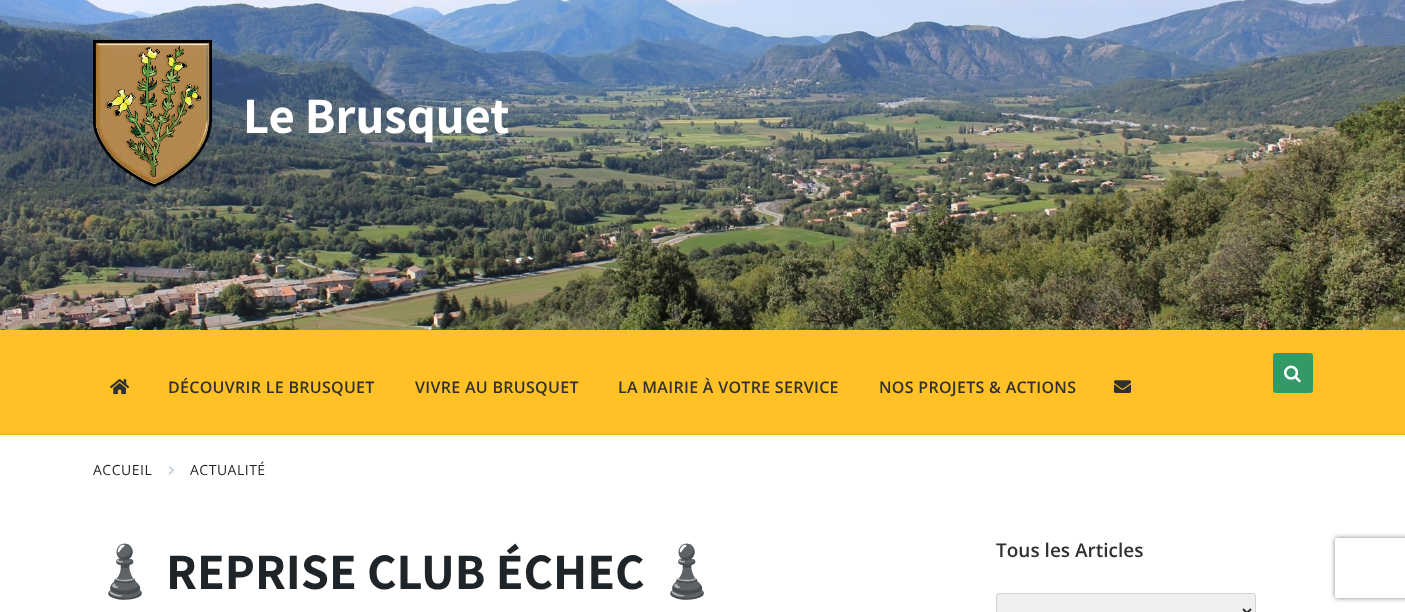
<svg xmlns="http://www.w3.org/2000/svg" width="1405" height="612">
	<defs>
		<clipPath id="clip1"><path d="M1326 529H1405V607H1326ZM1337 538H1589C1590 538 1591 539 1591 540V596C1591 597 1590 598 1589 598H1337C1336 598 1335 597 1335 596V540C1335 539 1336 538 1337 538Z" clip-rule="evenodd" /></clipPath>
	</defs>
	<rect width="100%" height="100%" fill="#FFFFFF" />
	<rect x="-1" y="329" width="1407" height="107" fill="none" stroke="#F2F2F2" stroke-width="2" />
	<image x="0" y="0" width="1405" height="330" href="assets/img1.png" />
	<image x="93" y="40" width="119" height="147" href="assets/img2.png" />
	<text x="243" y="133" font-family="Assistant" font-size="51" font-weight="700" fill="#FFFFFF">Le Brusquet</text>
	<rect x="0" y="330" width="1405" height="104" fill="#FFC125" />
	<rect x="0" y="434" width="1405" height="1" fill="#E6AE21" />
	<image x="110" y="379" width="20" height="16" href="assets/img3.png" />
	<g font-family="Open Sans" font-size="16" font-weight="600" letter-spacing="0.3" fill="#303030">
		<text x="168" y="393">DÉCOUVRIR LE BRUSQUET</text>
		<text x="415" y="393">VIVRE AU BRUSQUET</text>
		<text x="618" y="393">LA MAIRIE À VOTRE SERVICE</text>
		<text x="879" y="393">NOS PROJETS &amp; ACTIONS</text>
	</g>
	<image x="1114" y="380" width="17" height="13" href="assets/img4.png" />
	<rect x="1273" y="353" width="40" height="40" rx="3" fill="#339966" />
	<image x="1284" y="365" width="17" height="18" href="assets/img5.png" />
	<text x="93" y="475" font-family="Open Sans" font-size="14" letter-spacing="0.5" fill="#1E2427">ACCUEIL</text>
	<image x="168" y="466" width="7" height="9" href="assets/img6.png" />
	<text x="190" y="475" font-family="Open Sans" font-size="14" letter-spacing="0.5" fill="#1E2427">ACTUALITÉ</text>
	<text x="93" y="589" font-family="Noto Color Emoji" font-size="51" font-weight="700" fill="#1E2427">♟️</text>
	<text x="166" y="589" font-family="Assistant" font-size="51" font-weight="700" fill="#1E2427">REPRISE CLUB ÉCHEC</text>
	<text x="655" y="589" font-family="Noto Color Emoji" font-size="51" font-weight="700" fill="#1E2427">♟️</text>
	<text x="996" y="557" font-family="Open Sans" font-size="19" font-weight="600" fill="#303030">Tous les Articles</text>
	<rect x="996.5" y="593.5" width="259" height="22" rx="2.5" fill="#EFEFEF" stroke="#CCD5DB" />
	<path d="M1243 609L1247 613L1251 609" fill="none" stroke="#303030" stroke-width="2" />
	<g clip-path="url(#clip1)">
		<rect x="1335" y="538" width="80" height="60" rx="2" fill="#808080" filter="blur(2.5px)" />
	</g>
</svg>
